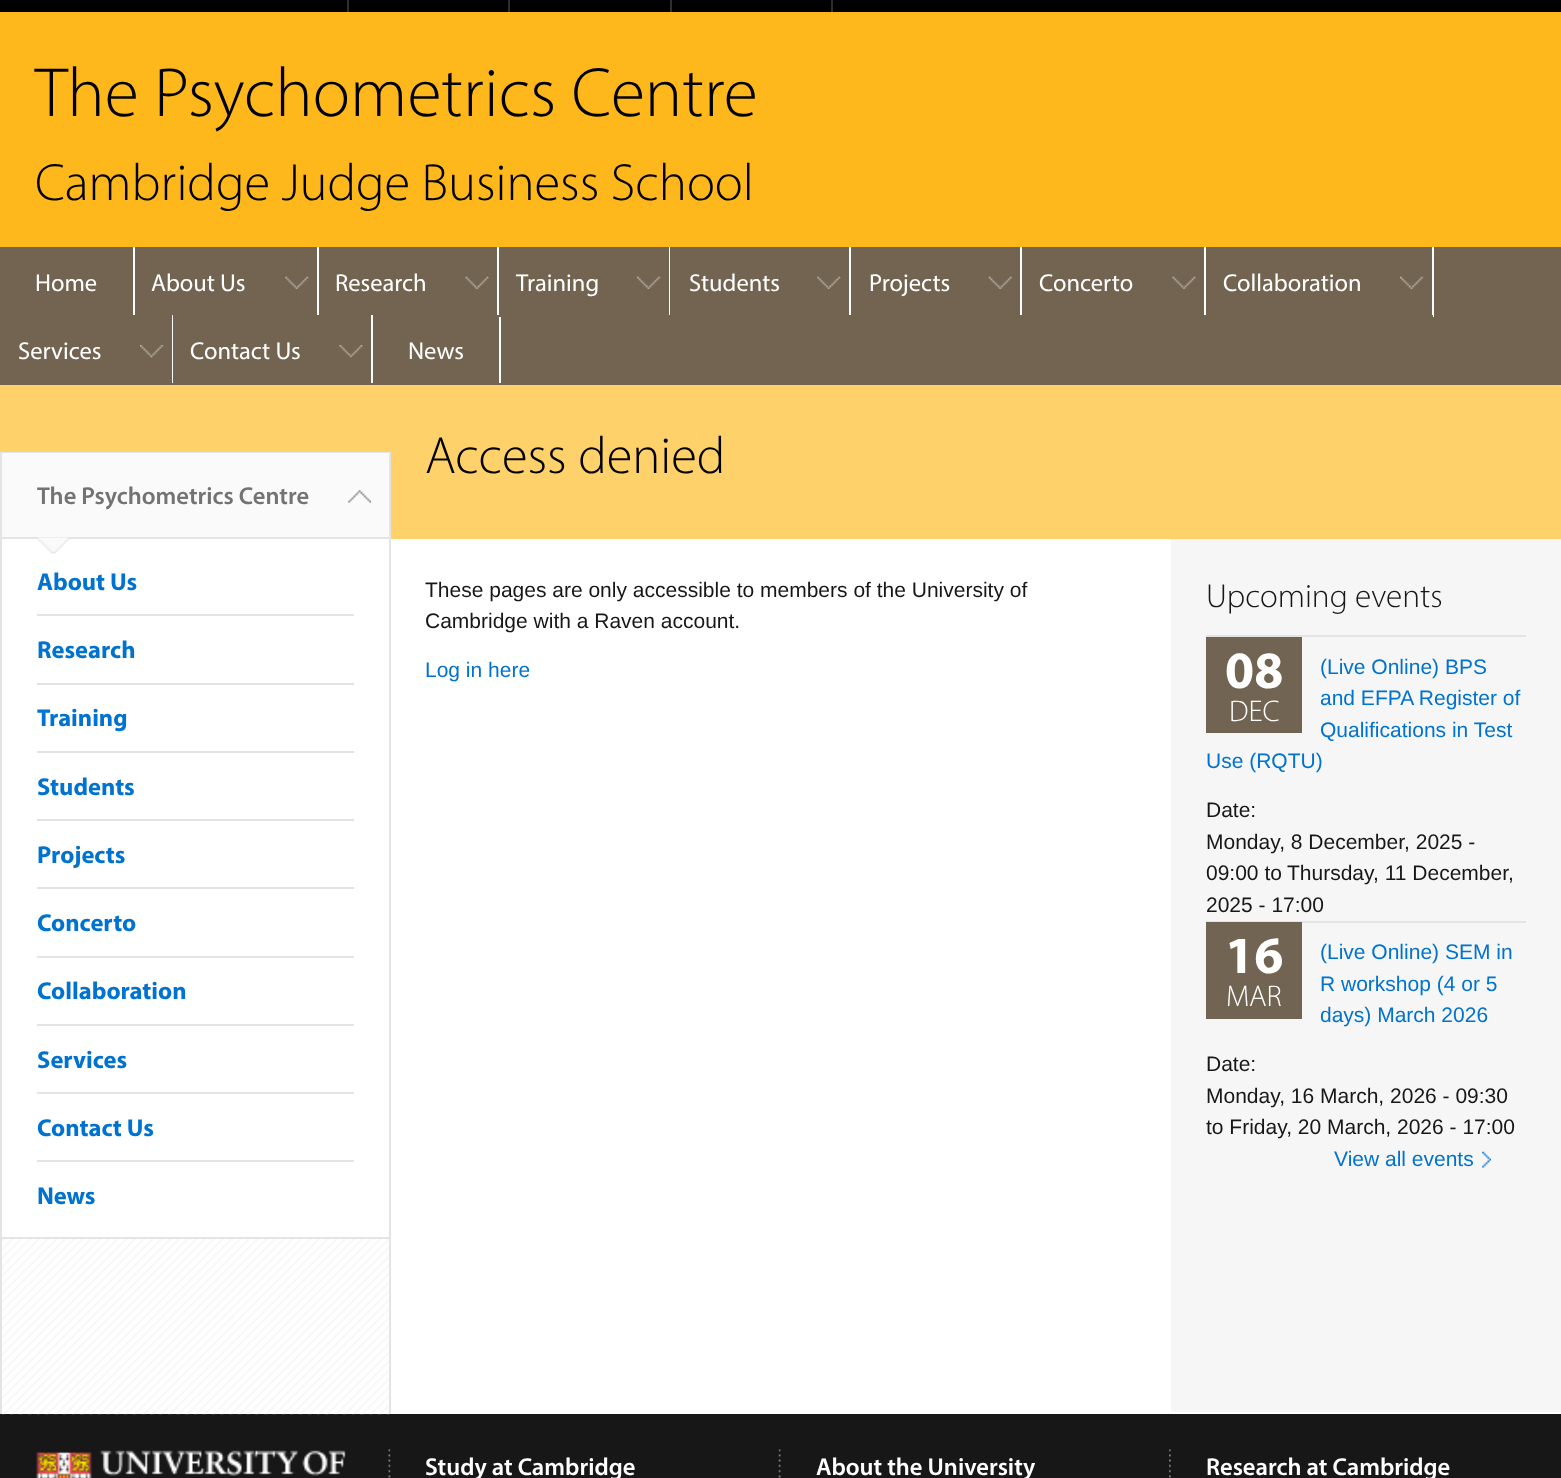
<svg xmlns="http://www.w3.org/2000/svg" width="1561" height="1478">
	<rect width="100%" height="100%" fill="#000000" />
	<rect x="347" y="0" width="2" height="12" fill="#2E2E2E" />
	<rect x="508" y="0" width="2" height="12" fill="#2E2E2E" />
	<rect x="670" y="0" width="2" height="12" fill="#2E2E2E" />
	<rect x="831" y="0" width="2" height="12" fill="#2E2E2E" />
	<rect x="0" y="12" width="1561" height="235" fill="#FFB81C" />
	<text x="35" y="116" font-family="Myriad" font-size="70" font-weight="300" fill="#000000">The Psychometrics Centre</text>
	<text x="35" y="200" font-family="Myriad" font-size="52.5" font-weight="300" fill="#000000">Cambridge Judge Business School</text>
	<rect x="0" y="247" width="1561" height="138" fill="#726450" />
	<rect x="133" y="247" width="2" height="70" fill="#FFFFFF" />
	<rect x="133" y="315" width="2" height="2" fill="#726450" />
	<text x="35" y="291" font-family="Myriad" font-size="24.5" fill="#FFFFFF">Home</text>
	<image x="285" y="276" width="24" height="13" href="assets/img1.png" />
	<rect x="317" y="247" width="2" height="70" fill="#FFFFFF" />
	<text x="151" y="291" font-family="Myriad" font-size="24.5" fill="#FFFFFF">About Us</text>
	<image x="465" y="276" width="24" height="13" href="assets/img2.png" />
	<rect x="497" y="247" width="2" height="70" fill="#FFFFFF" />
	<rect x="497" y="315" width="2" height="2" fill="#726450" />
	<text x="335" y="291" font-family="Myriad" font-size="24.5" fill="#FFFFFF">Research</text>
	<image x="637" y="276" width="24" height="13" href="assets/img3.png" />
	<rect x="669" y="247" width="1" height="70" fill="#FFFFFF" />
	<rect x="499" y="315" width="2" height="70" fill="#FFFFFF" />
	<rect x="499" y="315" width="171" height="2" fill="#726450" />
	<text x="516" y="291" font-family="Myriad" font-size="24.5" fill="#FFFFFF">Training</text>
	<image x="817" y="276" width="24" height="13" href="assets/img1.png" />
	<rect x="849" y="247" width="2" height="70" fill="#FFFFFF" />
	<rect x="849" y="315" width="2" height="2" fill="#726450" />
	<text x="689" y="291" font-family="Myriad" font-size="24.5" fill="#FFFFFF">Students</text>
	<image x="988" y="276" width="24" height="13" href="assets/img4.png" />
	<rect x="1020" y="247" width="2" height="70" fill="#FFFFFF" />
	<rect x="1020" y="315" width="2" height="2" fill="#726450" />
	<text x="869" y="291" font-family="Myriad" font-size="24.5" fill="#FFFFFF">Projects</text>
	<image x="1172" y="276" width="24" height="13" href="assets/img5.png" />
	<rect x="1204" y="247" width="2" height="70" fill="#FFFFFF" />
	<rect x="1204" y="315" width="2" height="2" fill="#726450" />
	<text x="1039" y="291" font-family="Myriad" font-size="24.5" fill="#FFFFFF">Concerto</text>
	<image x="1400" y="276" width="24" height="13" href="assets/img3.png" />
	<rect x="1432" y="247" width="2" height="70" fill="#FFFFFF" />
	<rect x="1432" y="315" width="1" height="2" fill="#726450" />
	<text x="1223" y="291" font-family="Myriad" font-size="24.5" fill="#FFFFFF">Collaboration</text>
	<image x="140" y="345" width="24" height="13" href="assets/img6.png" />
	<rect x="172" y="315" width="1" height="70" fill="#FFFFFF" />
	<rect x="172" y="383" width="1" height="2" fill="#726450" />
	<text x="18" y="359" font-family="Myriad" font-size="24.5" fill="#FFFFFF">Services</text>
	<rect x="317" y="315" width="2" height="2" fill="#726450" />
	<image x="339" y="345" width="24" height="13" href="assets/img7.png" />
	<rect x="371" y="315" width="2" height="70" fill="#FFFFFF" />
	<rect x="371" y="383" width="2" height="2" fill="#726450" />
	<text x="190" y="359" font-family="Myriad" font-size="24.5" fill="#FFFFFF">Contact Us</text>
	<rect x="499" y="383" width="2" height="2" fill="#726450" />
	<text x="408" y="359" font-family="Myriad" font-size="24.5" fill="#FFFFFF">News</text>
	<rect x="0" y="385" width="1561" height="154" fill="#FFD16B" />
	<text x="425" y="473" font-family="Myriad" font-size="52.5" font-weight="300" fill="#000000">Access denied</text>
	<rect x="2" y="539" width="1559" height="875" fill="#FFFFFF" />
	<rect x="0" y="1414" width="1561" height="64" fill="#171717" />
	<image x="1" y="451" width="389" height="964" href="assets/img8.png" />
	<rect x="0" y="452" width="390" height="1" fill="#E4E4E4" />
	<rect x="389" y="452" width="2" height="962" fill="#E4E4E4" />
	<rect x="0" y="452" width="2" height="962" fill="#E4E4E4" />
	<rect x="2" y="539" width="387" height="698" fill="#FFFFFF" />
	<rect x="2" y="1237" width="387" height="2" fill="#E4E4E4" />
	<rect x="2" y="453" width="387" height="84" fill="#FAFAFA" />
	<image x="348" y="490" width="23" height="13" href="assets/img9.png" />
	<rect x="2" y="537" width="387" height="2" fill="#E4E4E4" />
	<text x="37" y="504" font-family="Myriad" font-size="24.5" font-weight="600" fill="#737373">The Psychometrics Centre</text>
	<image x="37" y="537" width="33" height="17" href="assets/img10.png" />
	<rect x="37" y="614" width="317" height="2" fill="#E4E4E4" />
	<text x="37" y="590" font-family="Myriad" font-size="24.5" font-weight="700" fill="#0072CF">About Us</text>
	<rect x="37" y="683" width="317" height="2" fill="#E4E4E4" />
	<text x="37" y="658" font-family="Myriad" font-size="24.5" font-weight="700" fill="#0072CF">Research</text>
	<rect x="37" y="751" width="317" height="2" fill="#E4E4E4" />
	<text x="37" y="726" font-family="Myriad" font-size="24.5" font-weight="700" fill="#0072CF">Training</text>
	<rect x="37" y="819" width="317" height="2" fill="#E4E4E4" />
	<text x="37" y="795" font-family="Myriad" font-size="24.5" font-weight="700" fill="#0072CF">Students</text>
	<rect x="37" y="887" width="317" height="2" fill="#E4E4E4" />
	<text x="37" y="863" font-family="Myriad" font-size="24.5" font-weight="700" fill="#0072CF">Projects</text>
	<rect x="37" y="956" width="317" height="2" fill="#E4E4E4" />
	<text x="37" y="931" font-family="Myriad" font-size="24.5" font-weight="700" fill="#0072CF">Concerto</text>
	<rect x="37" y="1024" width="317" height="2" fill="#E4E4E4" />
	<text x="37" y="999" font-family="Myriad" font-size="24.5" font-weight="700" fill="#0072CF">Collaboration</text>
	<rect x="37" y="1092" width="317" height="2" fill="#E4E4E4" />
	<text x="37" y="1068" font-family="Myriad" font-size="24.5" font-weight="700" fill="#0072CF">Services</text>
	<rect x="37" y="1160" width="317" height="2" fill="#E4E4E4" />
	<g font-family="Myriad" font-size="24.5" font-weight="700" fill="#0072CF">
		<text x="37" y="1136">Contact Us</text>
		<text x="37" y="1204">News</text>
	</g>
	<g font-family="Liberation Sans" font-size="21" fill="#171717">
		<text x="425" y="597">These pages are only accessible to members of the University of</text>
		<text x="425" y="628">Cambridge with a Raven account.</text>
	</g>
	<text x="425" y="677" font-family="Liberation Sans" font-size="21" fill="#0072CF">Log in here</text>
	<rect x="1171" y="539" width="390" height="873" fill="#F6F6F6" />
	<rect x="1206" y="635" width="320" height="2" fill="#E4E4E4" />
	<text x="1206" y="607" font-family="Myriad" font-size="33.25" font-weight="300" fill="#171717">Upcoming events</text>
	<rect x="1206" y="637" width="96" height="96" fill="#716452" />
	<text x="1225" y="688" font-family="Myriad" font-size="52.5" font-weight="700" fill="#FFFFFF">08</text>
	<text x="1229" y="721" font-family="Myriad" font-size="30" font-weight="300" fill="#FFFFFF">DEC</text>
	<g font-family="Liberation Sans" font-size="21" fill="#0072CF">
		<text x="1320" y="674">(Live Online) BPS</text>
		<text x="1320" y="705">and EFPA Register of</text>
		<text x="1320" y="737">Qualifications in Test</text>
		<text x="1206" y="768">Use (RQTU)</text>
	</g>
	<g font-family="Liberation Sans" font-size="21" fill="#171717">
		<text x="1206" y="817">Date:</text>
		<text x="1206" y="849">Monday, 8 December, 2025 -</text>
		<text x="1206" y="880">09:00 to</text>
		<text x="1287" y="880">Thursday, 11 December,</text>
		<text x="1206" y="912">2025 - 17:00</text>
	</g>
	<rect x="1206" y="921" width="320" height="2" fill="#E4E4E4" />
	<rect x="1206" y="922" width="96" height="97" fill="#716452" />
	<text x="1225" y="973" font-family="Myriad" font-size="52.5" font-weight="700" fill="#FFFFFF">16</text>
	<text x="1226" y="1006" font-family="Myriad" font-size="30" font-weight="300" fill="#FFFFFF">MAR</text>
	<g font-family="Liberation Sans" font-size="21" fill="#0072CF">
		<text x="1320" y="959">(Live Online) SEM in</text>
		<text x="1320" y="991">R workshop (4 or 5</text>
		<text x="1320" y="1022">days) March 2026</text>
	</g>
	<g font-family="Liberation Sans" font-size="21" fill="#171717">
		<text x="1206" y="1071">Date:</text>
		<text x="1206" y="1103">Monday, 16 March, 2026 - 09:30</text>
		<text x="1206" y="1134">to Friday, 20 March, 2026 - 17:00</text>
	</g>
	<image x="1482" y="1151" width="9" height="17" href="assets/img11.png" />
	<text x="1334" y="1166" font-family="Liberation Sans" font-size="21" fill="#0072CF">View all events</text>
	<image x="388" y="1449" width="3" height="29" href="assets/img12.png" />
	<image x="36" y="1450" width="310" height="28" href="assets/img13.png" />
	<image x="778" y="1449" width="3" height="29" href="assets/img14.png" />
	<text x="425" y="1475" font-family="Myriad" font-size="24.5" font-weight="600" fill="#FFFFFF">Study at Cambridge</text>
	<image x="1169" y="1449" width="2" height="29" href="assets/img15.png" />
	<g font-family="Myriad" font-size="24.5" font-weight="600" fill="#FFFFFF">
		<text x="816" y="1475">About the University</text>
		<text x="1206" y="1475">Research at Cambridge</text>
	</g>
</svg>
